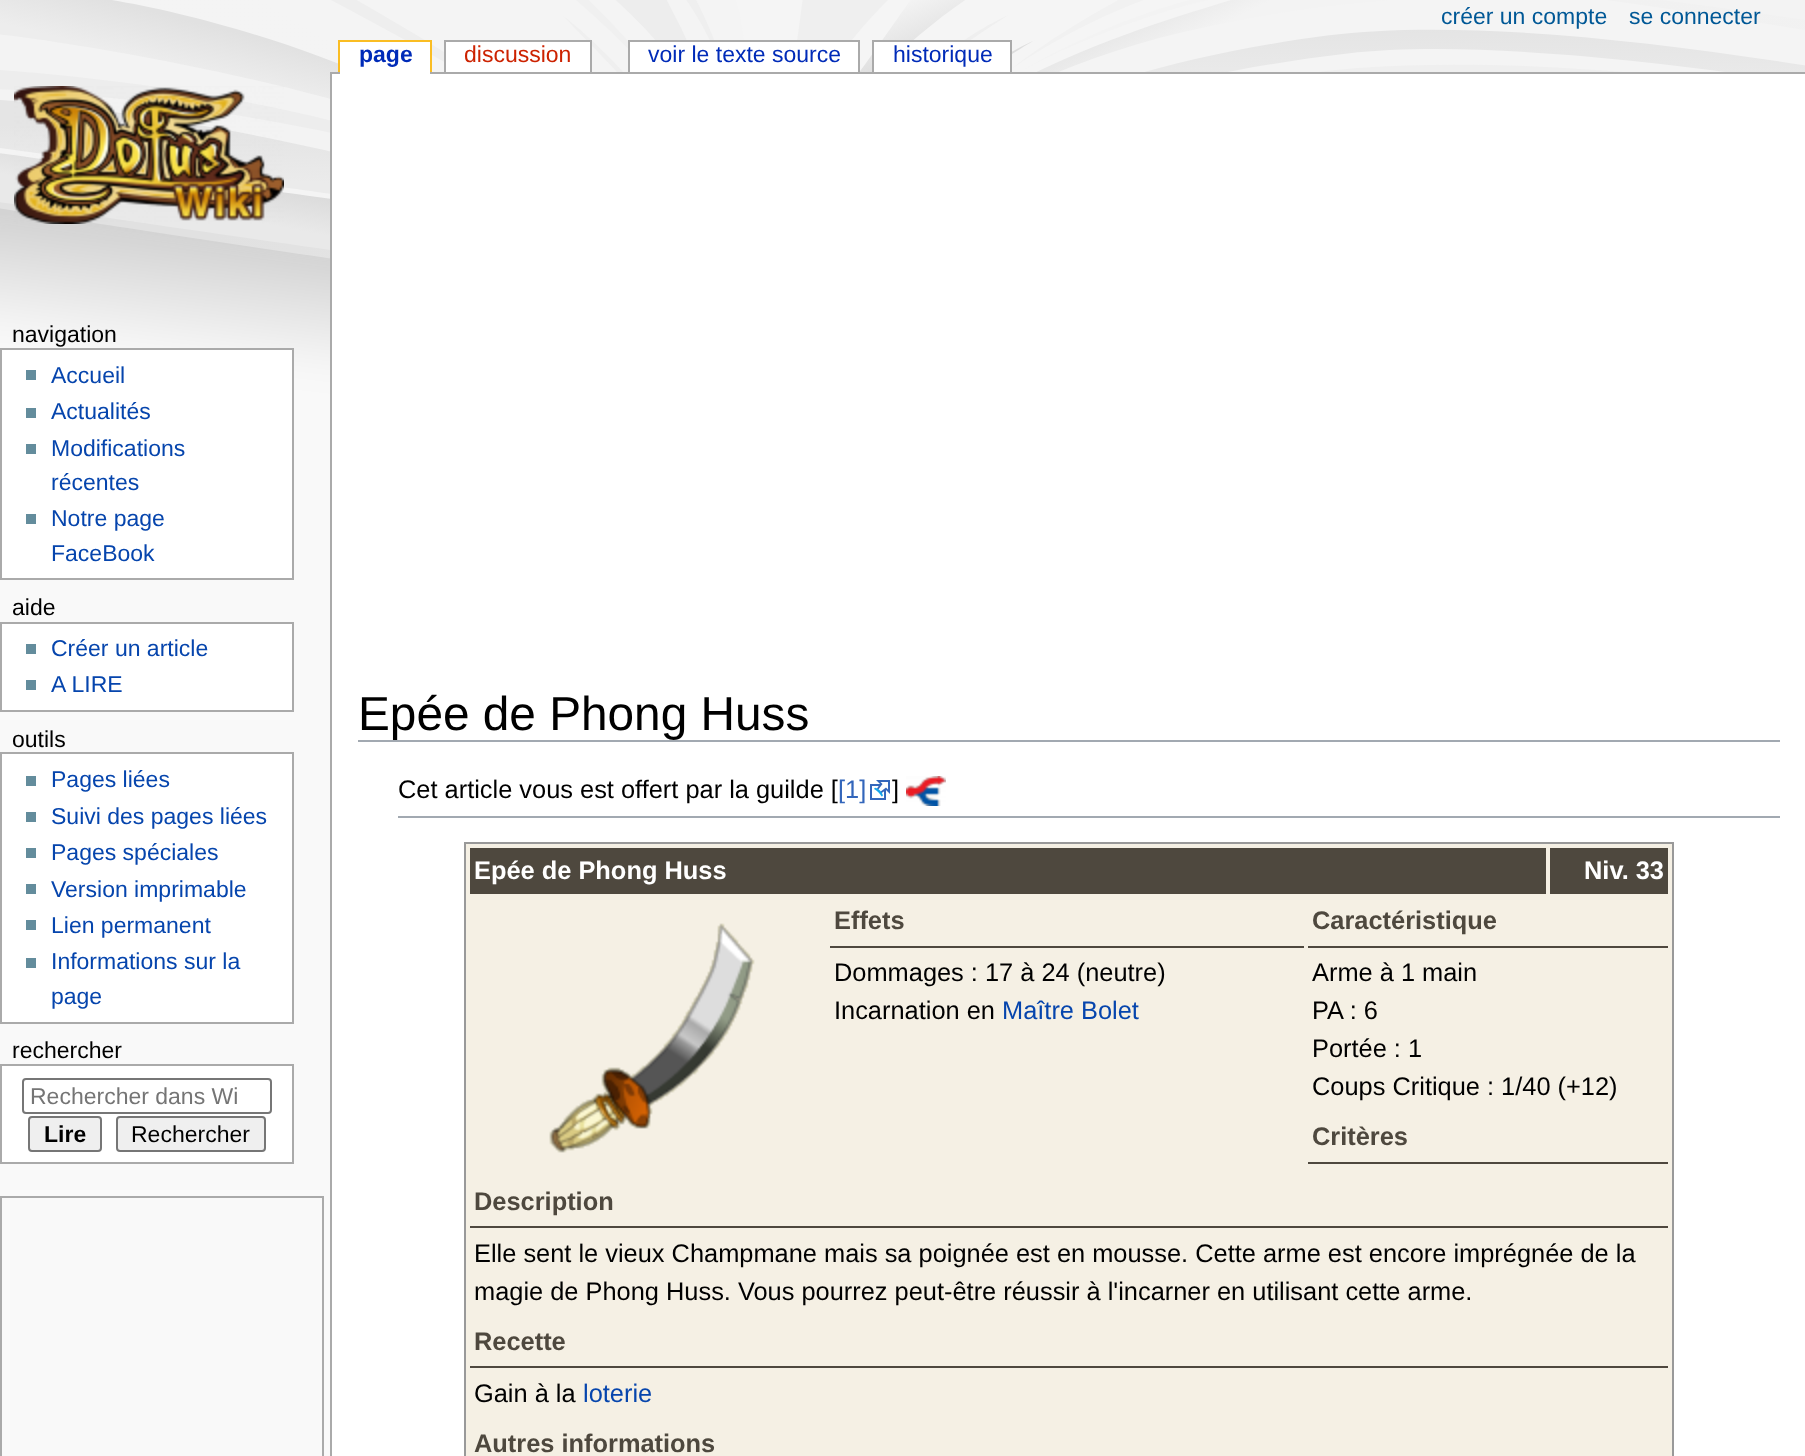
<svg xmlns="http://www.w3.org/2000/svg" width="1805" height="1456">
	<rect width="100%" height="100%" fill="#F9F9F9" />
	<image x="0" y="0" width="1805" height="419" href="assets/img1.png" />
	<g font-family="Liberation Sans" font-size="23" fill="#005896">
		<text x="1441" y="24">créer un compte</text>
		<text x="1629" y="24">se connecter</text>
	</g>
	<rect x="330" y="72" width="1475" height="2" fill="#AAAAAA" />
	<rect x="340" y="42" width="90" height="32" fill="#FFFFFF" />
	<text x="359" y="62" font-family="Liberation Sans" font-size="23" font-weight="700" fill="#002BB8">page</text>
	<rect x="338" y="40" width="94" height="2" fill="#FABD23" />
	<rect x="430" y="40" width="2" height="32" fill="#FABD23" />
	<rect x="338" y="40" width="2" height="32" fill="#FABD23" />
	<rect x="446" y="42" width="144" height="30" fill="#FFFFFF" />
	<text x="464" y="62" font-family="Liberation Sans" font-size="23" fill="#CC2200">discussion</text>
	<rect x="444" y="40" width="148" height="2" fill="#AAAAAA" />
	<rect x="590" y="40" width="2" height="32" fill="#AAAAAA" />
	<rect x="444" y="40" width="2" height="32" fill="#AAAAAA" />
	<rect x="630" y="42" width="228" height="30" fill="#FFFFFF" />
	<text x="648" y="62" font-family="Liberation Sans" font-size="23" fill="#002BB8">voir le texte source</text>
	<rect x="628" y="40" width="232" height="2" fill="#AAAAAA" />
	<rect x="858" y="40" width="2" height="32" fill="#AAAAAA" />
	<rect x="628" y="40" width="2" height="32" fill="#AAAAAA" />
	<rect x="874" y="42" width="136" height="30" fill="#FFFFFF" />
	<text x="893" y="62" font-family="Liberation Sans" font-size="23" fill="#002BB8">historique</text>
	<rect x="872" y="40" width="140" height="2" fill="#AAAAAA" />
	<rect x="1010" y="40" width="2" height="32" fill="#AAAAAA" />
	<rect x="872" y="40" width="2" height="32" fill="#AAAAAA" />
	<image x="14" y="86" width="270" height="138" href="assets/img2.png" />
	<text x="12" y="342" font-family="Liberation Sans" font-size="23" fill="#000000">navigation</text>
	<rect x="1" y="349" width="292" height="230" fill="#FFFFFF" stroke="#AAAAAA" stroke-width="2" />
	<rect x="26" y="370" width="10" height="10" fill="#638C9C" />
	<text x="51" y="383" font-family="Liberation Sans" font-size="23" fill="#0645AD">Accueil</text>
	<rect x="26" y="408" width="10" height="10" fill="#638C9C" />
	<text x="51" y="419" font-family="Liberation Sans" font-size="23" fill="#0645AD">Actualités</text>
	<rect x="26" y="444" width="10" height="10" fill="#638C9C" />
	<g font-family="Liberation Sans" font-size="23" fill="#0645AD">
		<text x="51" y="456">Modifications</text>
		<text x="51" y="490">récentes</text>
	</g>
	<rect x="26" y="514" width="10" height="10" fill="#638C9C" />
	<g font-family="Liberation Sans" font-size="23" fill="#0645AD">
		<text x="51" y="526">Notre page</text>
		<text x="51" y="561">FaceBook</text>
	</g>
	<text x="12" y="615" font-family="Liberation Sans" font-size="23" fill="#000000">aide</text>
	<rect x="1" y="623" width="292" height="88" fill="#FFFFFF" stroke="#AAAAAA" stroke-width="2" />
	<rect x="26" y="644" width="10" height="10" fill="#638C9C" />
	<text x="51" y="656" font-family="Liberation Sans" font-size="23" fill="#0645AD">Créer un article</text>
	<rect x="26" y="680" width="10" height="10" fill="#638C9C" />
	<text x="51" y="692" font-family="Liberation Sans" font-size="23" fill="#0645AD">A LIRE</text>
	<text x="12" y="747" font-family="Liberation Sans" font-size="23" fill="#000000">outils</text>
	<rect x="1" y="753" width="292" height="270" fill="#FFFFFF" stroke="#AAAAAA" stroke-width="2" />
	<rect x="26" y="776" width="10" height="10" fill="#638C9C" />
	<text x="51" y="787" font-family="Liberation Sans" font-size="23" fill="#0645AD">Pages liées</text>
	<rect x="26" y="812" width="10" height="10" fill="#638C9C" />
	<text x="51" y="824" font-family="Liberation Sans" font-size="23" fill="#0645AD">Suivi des pages liées</text>
	<rect x="26" y="848" width="10" height="10" fill="#638C9C" />
	<text x="51" y="860" font-family="Liberation Sans" font-size="23" fill="#0645AD">Pages spéciales</text>
	<rect x="26" y="884" width="10" height="10" fill="#638C9C" />
	<text x="51" y="897" font-family="Liberation Sans" font-size="23" fill="#0645AD">Version imprimable</text>
	<rect x="26" y="920" width="10" height="10" fill="#638C9C" />
	<text x="51" y="933" font-family="Liberation Sans" font-size="23" fill="#0645AD">Lien permanent</text>
	<rect x="26" y="958" width="10" height="10" fill="#638C9C" />
	<g font-family="Liberation Sans" font-size="23" fill="#0645AD">
		<text x="51" y="969">Informations sur la</text>
		<text x="51" y="1004">page</text>
	</g>
	<text x="12" y="1058" font-family="Liberation Sans" font-size="23" fill="#000000">rechercher</text>
	<rect x="1" y="1065" width="292" height="98" fill="#FFFFFF" stroke="#AAAAAA" stroke-width="2" />
	<rect x="23" y="1079" width="248" height="34" rx="3" fill="none" stroke="#767676" stroke-width="2" />
	<text x="30" y="1104" font-family="Liberation Sans" font-size="23" fill="#757575">Rechercher dans Wi</text>
	<rect x="29" y="1117" width="72" height="34" rx="3" fill="#EFEFEF" stroke="#767676" stroke-width="2" />
	<text x="44" y="1142" font-family="Liberation Sans" font-size="23" font-weight="700" fill="#000000">Lire</text>
	<rect x="117" y="1117" width="148" height="34" rx="3" fill="#EFEFEF" stroke="#767676" stroke-width="2" />
	<text x="131" y="1142" font-family="Liberation Sans" font-size="23" fill="#000000">Rechercher</text>
	<rect x="1" y="1197" width="322" height="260" fill="none" stroke="#AAAAAA" stroke-width="2" />
	<rect x="332" y="74" width="1473" height="1382" fill="#FFFFFF" />
	<rect x="330" y="72" width="2" height="1384" fill="#AAAAAA" />
	<rect x="358" y="740" width="1422" height="2" fill="#A2A9B1" />
	<text x="358" y="730" font-family="Liberation Sans" font-size="47.75" fill="#000000">Epée de Phong Huss</text>
	<text x="398" y="798" font-family="Liberation Sans" font-size="25.4" fill="#000000">Cet article vous est offert par la guilde [</text>
	<text x="838" y="798" font-family="Liberation Sans" font-size="25.4" fill="#3366BB">[1]</text>
	<image x="870" y="780" width="20" height="20" href="assets/img3.png" />
	<text x="892" y="798" font-family="Liberation Sans" font-size="25.4" fill="#000000">]</text>
	<image x="906" y="776" width="40" height="30" href="assets/img4.png" />
	<rect x="398" y="816" width="1382" height="2" fill="#A2A9B1" />
	<rect x="465" y="843" width="1208" height="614" fill="#F5F0E4" stroke="#999999" stroke-width="2" />
	<rect x="470" y="848" width="1076" height="46" fill="#4E483E" />
	<text x="474" y="879" font-family="Liberation Sans" font-size="25.4" font-weight="700" fill="#FFFFFF">Epée de Phong Huss</text>
	<rect x="1550" y="848" width="118" height="46" fill="#4E483E" />
	<text x="1584" y="879" font-family="Liberation Sans" font-size="25.4" font-weight="700" fill="#FFFFFF">Niv. 33</text>
	<image x="549" y="923" width="206" height="230" href="assets/img5.png" />
	<rect x="830" y="946" width="474" height="2" fill="#4E483E" />
	<text x="834" y="929" font-family="Liberation Sans" font-size="25.4" font-weight="700" fill="#4E483E">Effets</text>
	<rect x="1308" y="946" width="360" height="2" fill="#4E483E" />
	<text x="1312" y="929" font-family="Liberation Sans" font-size="25.4" font-weight="700" fill="#4E483E">Caractéristique</text>
	<g font-family="Liberation Sans" font-size="25.4" fill="#000000">
		<text x="834" y="981">Dommages : 17 à 24 (neutre)</text>
		<text x="834" y="1019">Incarnation en</text>
	</g>
	<text x="1002" y="1019" font-family="Liberation Sans" font-size="25.4" fill="#0645AD">Maître Bolet</text>
	<g font-family="Liberation Sans" font-size="25.4" fill="#000000">
		<text x="1312" y="981">Arme à 1 main</text>
		<text x="1312" y="1019">PA : 6</text>
		<text x="1312" y="1057">Portée : 1</text>
		<text x="1312" y="1095">Coups Critique : 1/40 (+12)</text>
	</g>
	<rect x="1308" y="1162" width="360" height="2" fill="#4E483E" />
	<text x="1312" y="1145" font-family="Liberation Sans" font-size="25.4" font-weight="700" fill="#4E483E">Critères</text>
	<rect x="470" y="1226" width="1198" height="2" fill="#4E483E" />
	<text x="474" y="1210" font-family="Liberation Sans" font-size="25.4" font-weight="700" fill="#4E483E">Description</text>
	<g font-family="Liberation Sans" font-size="25.4" fill="#000000">
		<text x="474" y="1262">Elle sent le vieux Champmane mais sa poignée est en mousse. Cette arme est encore imprégnée de la</text>
		<text x="474" y="1300">magie de Phong Huss. Vous pourrez peut-être réussir à l'incarner en utilisant cette arme.</text>
	</g>
	<rect x="470" y="1366" width="1198" height="2" fill="#4E483E" />
	<text x="474" y="1350" font-family="Liberation Sans" font-size="25.4" font-weight="700" fill="#4E483E">Recette</text>
	<text x="474" y="1402" font-family="Liberation Sans" font-size="25.4" fill="#000000">Gain à la</text>
	<text x="583" y="1402" font-family="Liberation Sans" font-size="25.4" fill="#0645AD">loterie</text>
	<text x="474" y="1452" font-family="Liberation Sans" font-size="25.4" font-weight="700" fill="#4E483E">Autres informations</text>
</svg>
